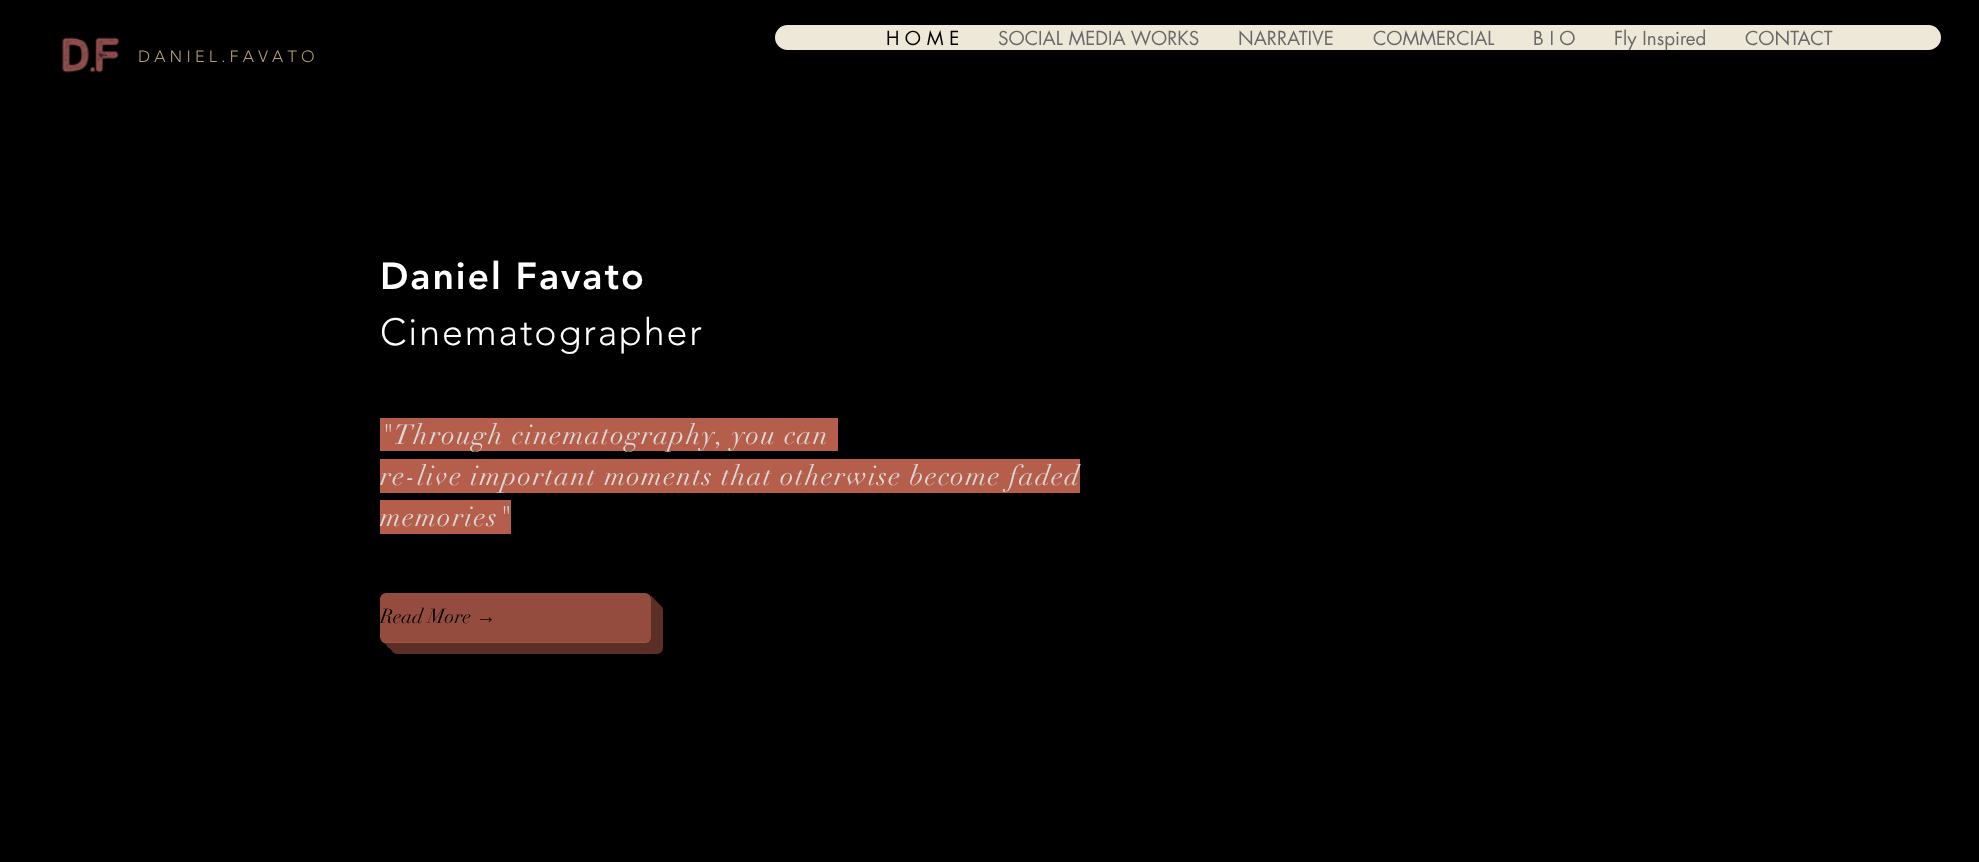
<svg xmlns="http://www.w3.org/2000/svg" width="1979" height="862">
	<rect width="100%" height="100%" fill="#000000" />
	<rect x="775" y="25" width="1166" height="25" rx="12.5" fill="#EEE8D8" />
	<text x="886" y="45" font-family="futura" font-size="18.75" fill="#000000">H O M E</text>
	<g font-family="futura" font-size="18.75" fill="#696969">
		<text x="998" y="45">SOCIAL MEDIA WORKS</text>
		<text x="1238" y="45">NARRATIVE</text>
		<text x="1373" y="45">COMMERCIAL</text>
		<text x="1533" y="45">B I O</text>
		<text x="1614" y="45">Fly Inspired</text>
		<text x="1745" y="45">CONTACT</text>
	</g>
	<image x="62" y="37" width="57" height="36" href="assets/img1.png" />
	<text x="138" y="62" font-family="'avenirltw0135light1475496'" font-size="16.25" font-weight="300" fill="#B39F79">D A N I E L . F A V A T O</text>
	<text x="380" y="289" font-family="'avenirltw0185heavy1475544'" font-size="37.5" font-weight="900" letter-spacing="1.9" fill="#FFFFFF">Daniel Favato</text>
	<text x="380" y="345" font-family="'avenirltw0135light1475496'" font-size="37.5" font-weight="300" letter-spacing="1.9" fill="#FFFFFF">Cinematographer</text>
	<rect x="380" y="418" width="458" height="33" fill="#B55E4C" />
	<text x="380" y="444" font-family="didot" font-size="27.5" letter-spacing="1.38" fill="#DBD9D7">"Through cinematography, you can</text>
	<rect x="380" y="459" width="700" height="34" fill="#B55E4C" />
	<text x="380" y="485" font-family="didot" font-size="27.5" letter-spacing="1.38" fill="#DBD9D7">re-live important moments that otherwise become faded</text>
	<rect x="380" y="500" width="131" height="34" fill="#B55E4C" />
	<text x="380" y="526" font-family="didot" font-size="27.5" letter-spacing="1.38" fill="#DBD9D7">memories"</text>
	<path d="M391 642V648C391 651 394 654 397 654H657C660 654 663 651 663 648V610C663 607 660 604 657 604H651V636C651 640 648 642 645 642Z" fill="#5B2F26" />
	<path d="M389 642V645C389 648 392 651 395 651H654C657 651 660 648 660 645V607C660 604 657 601 654 601H651V636C651 640 648 642 645 642Z" fill="#5B2F26" />
	<path d="M386 642C386 646 388 649 392 649H652C655 649 658 646 658 643V611C658 606 659 599 651 599V624C651 629 654 642 645 642Z" fill="#5B2F26" />
	<path d="M384 642C385 644 387 646 390 646H649C652 646 655 643 655 640V602C655 599 653 597 651 596C652 599 651 603 651 605V624C651 629 654 642 645 642Z" fill="#5B2F26" />
	<path d="M381 640C382 642 384 644 387 644H647C650 644 653 641 653 638V600C653 598 652 596 650 595C651 596 651 597 651 599V636C651 640 648 642 645 642H386C384 642 383 642 381 640Z" fill="#5B2F26" />
	<rect x="380" y="593" width="271" height="50" rx="6" fill="#B55E4C" fill-opacity="0.81" />
	<text x="380" y="623" font-family="didot" font-size="20" fill="#000000">Read More</text>
	<text x="476" y="623" font-family="Liberation Serif" font-size="20" fill="#000000">→</text>
</svg>
